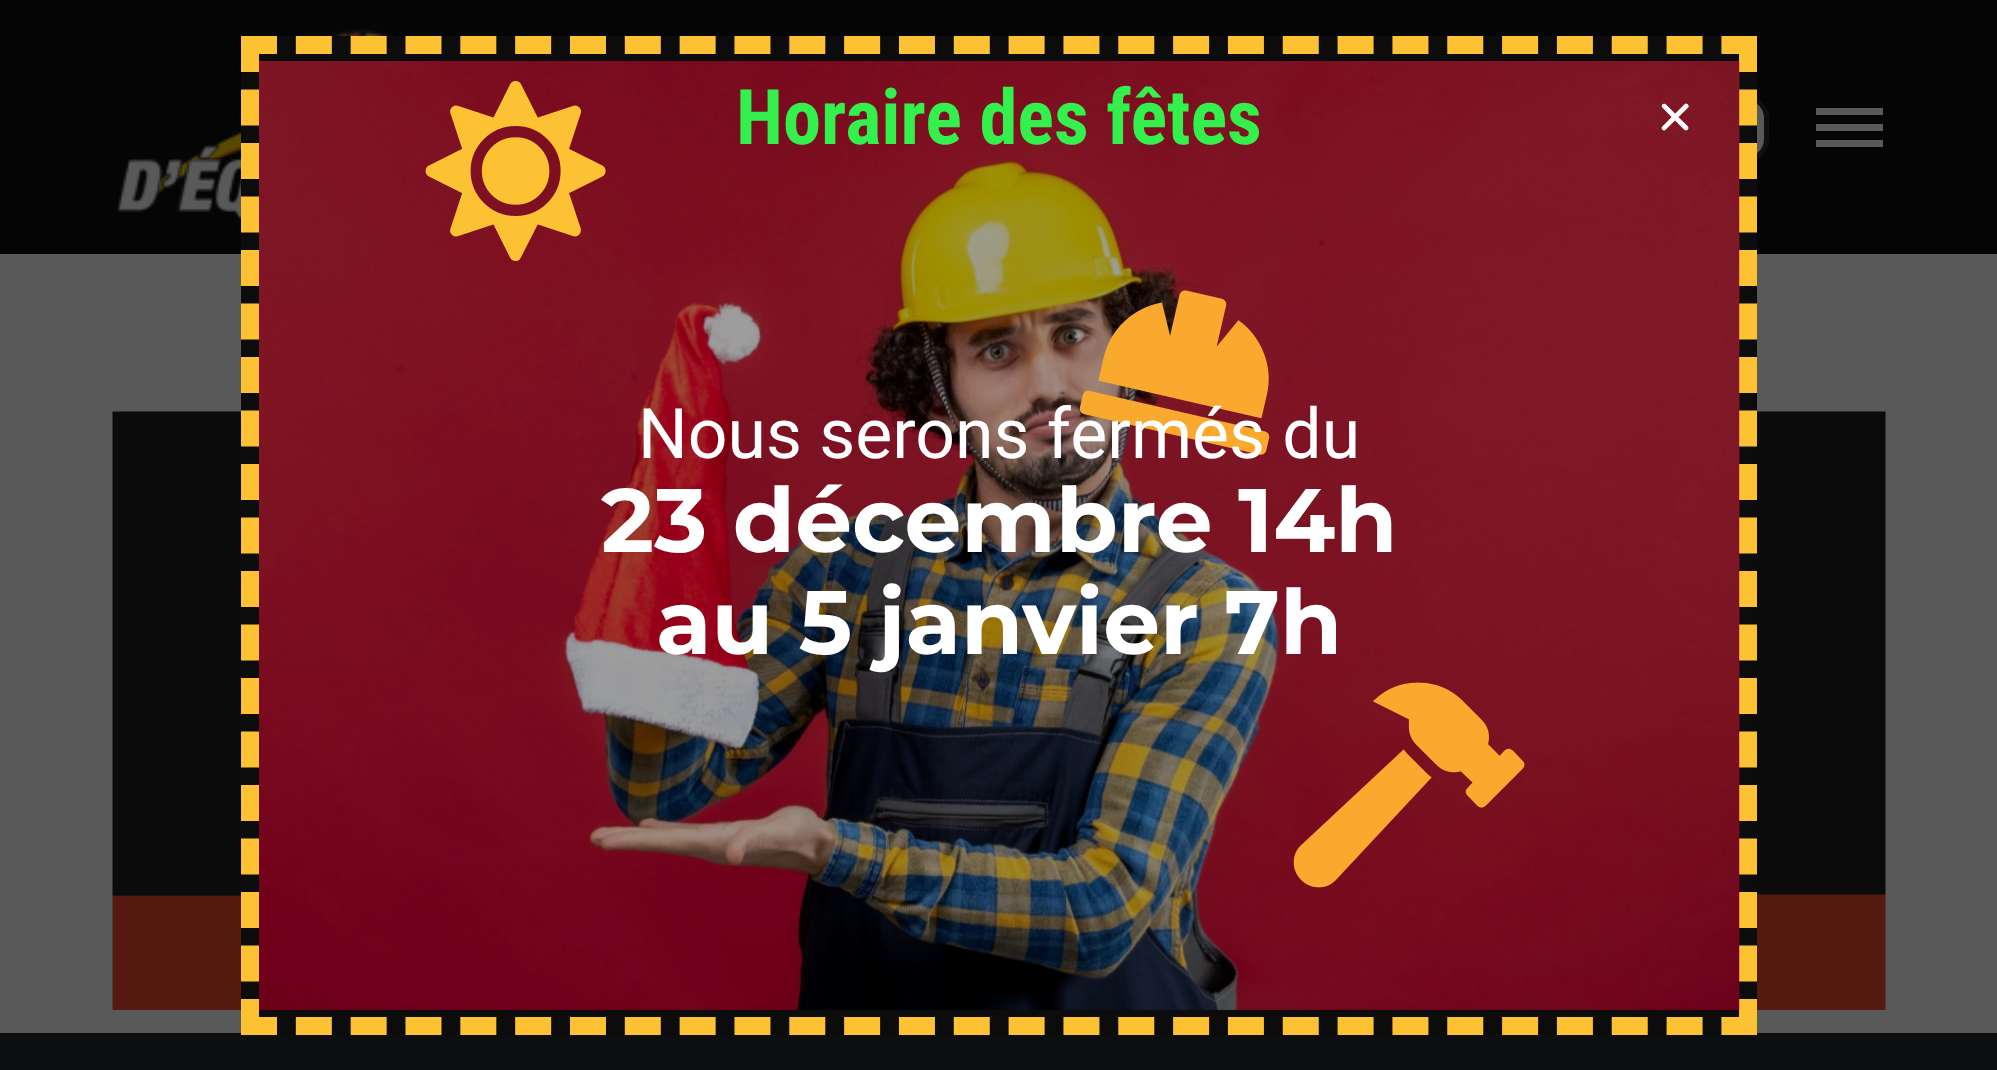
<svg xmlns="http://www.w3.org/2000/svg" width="1997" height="1070">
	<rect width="100%" height="100%" fill="#595959" />
	<rect x="0" y="0" width="1997" height="254" fill="#050505" />
	<image x="116" y="29" width="276" height="190" href="assets/img1.png" />
	<rect x="1321.5" y="97.5" width="445" height="62" rx="20.5" fill="#595959" stroke="#0F0F0F" stroke-width="5" />
	<rect x="1816" y="108" width="67" height="7" fill="#595959" />
	<rect x="1816" y="124" width="67" height="7" fill="#595959" />
	<rect x="1816" y="140" width="67" height="7" fill="#595959" />
	<image x="112" y="411" width="1774" height="599" href="assets/img2.png" />
	<rect x="0" y="1033" width="1997" height="37" fill="#0D0E0F" />
	<rect x="241" y="36" width="1516" height="999" fill="#0C0C0C" />
	<path d="M241 45H1757" fill="none" stroke="#FDC134" stroke-width="18" stroke-dasharray="36 18.83" />
	<path d="M1748 36V1035" fill="none" stroke="#FDC134" stroke-width="18" stroke-dasharray="36 17.5" />
	<path d="M241 1026H1757" fill="none" stroke="#FDC134" stroke-width="18" stroke-dasharray="36 18.83" />
	<path d="M250 36V1035" fill="none" stroke="#FDC134" stroke-width="18" stroke-dasharray="36 17.5" />
	<image x="259" y="61" width="1481" height="949" href="assets/img3.png" />
	<rect x="259" y="61" width="1480" height="949" fill="#000000" fill-opacity="0.38" />
	<image x="425" y="81" width="181" height="180" href="assets/img4.png" />
	<text x="736" y="144" font-family="Roboto Condensed" font-size="76.5" font-weight="700" fill="#33F04D">Horaire des fêtes</text>
	<image x="1079" y="290" width="191" height="165" href="assets/img5.png" />
	<text x="638" y="458" font-family="Roboto" font-size="69.75" fill="#FFFFFF">Nous serons fermés du</text>
	<g font-family="Montserrat" font-size="90" font-weight="700" fill="#FFFFFF">
		<text x="601" y="552">23 décembre 14h</text>
		<text x="656" y="654">au 5 janvier 7h</text>
	</g>
	<image x="1293" y="682" width="232" height="206" href="assets/img6.png" />
	<image x="1661" y="103" width="28" height="28" href="assets/img7.png" />
</svg>
